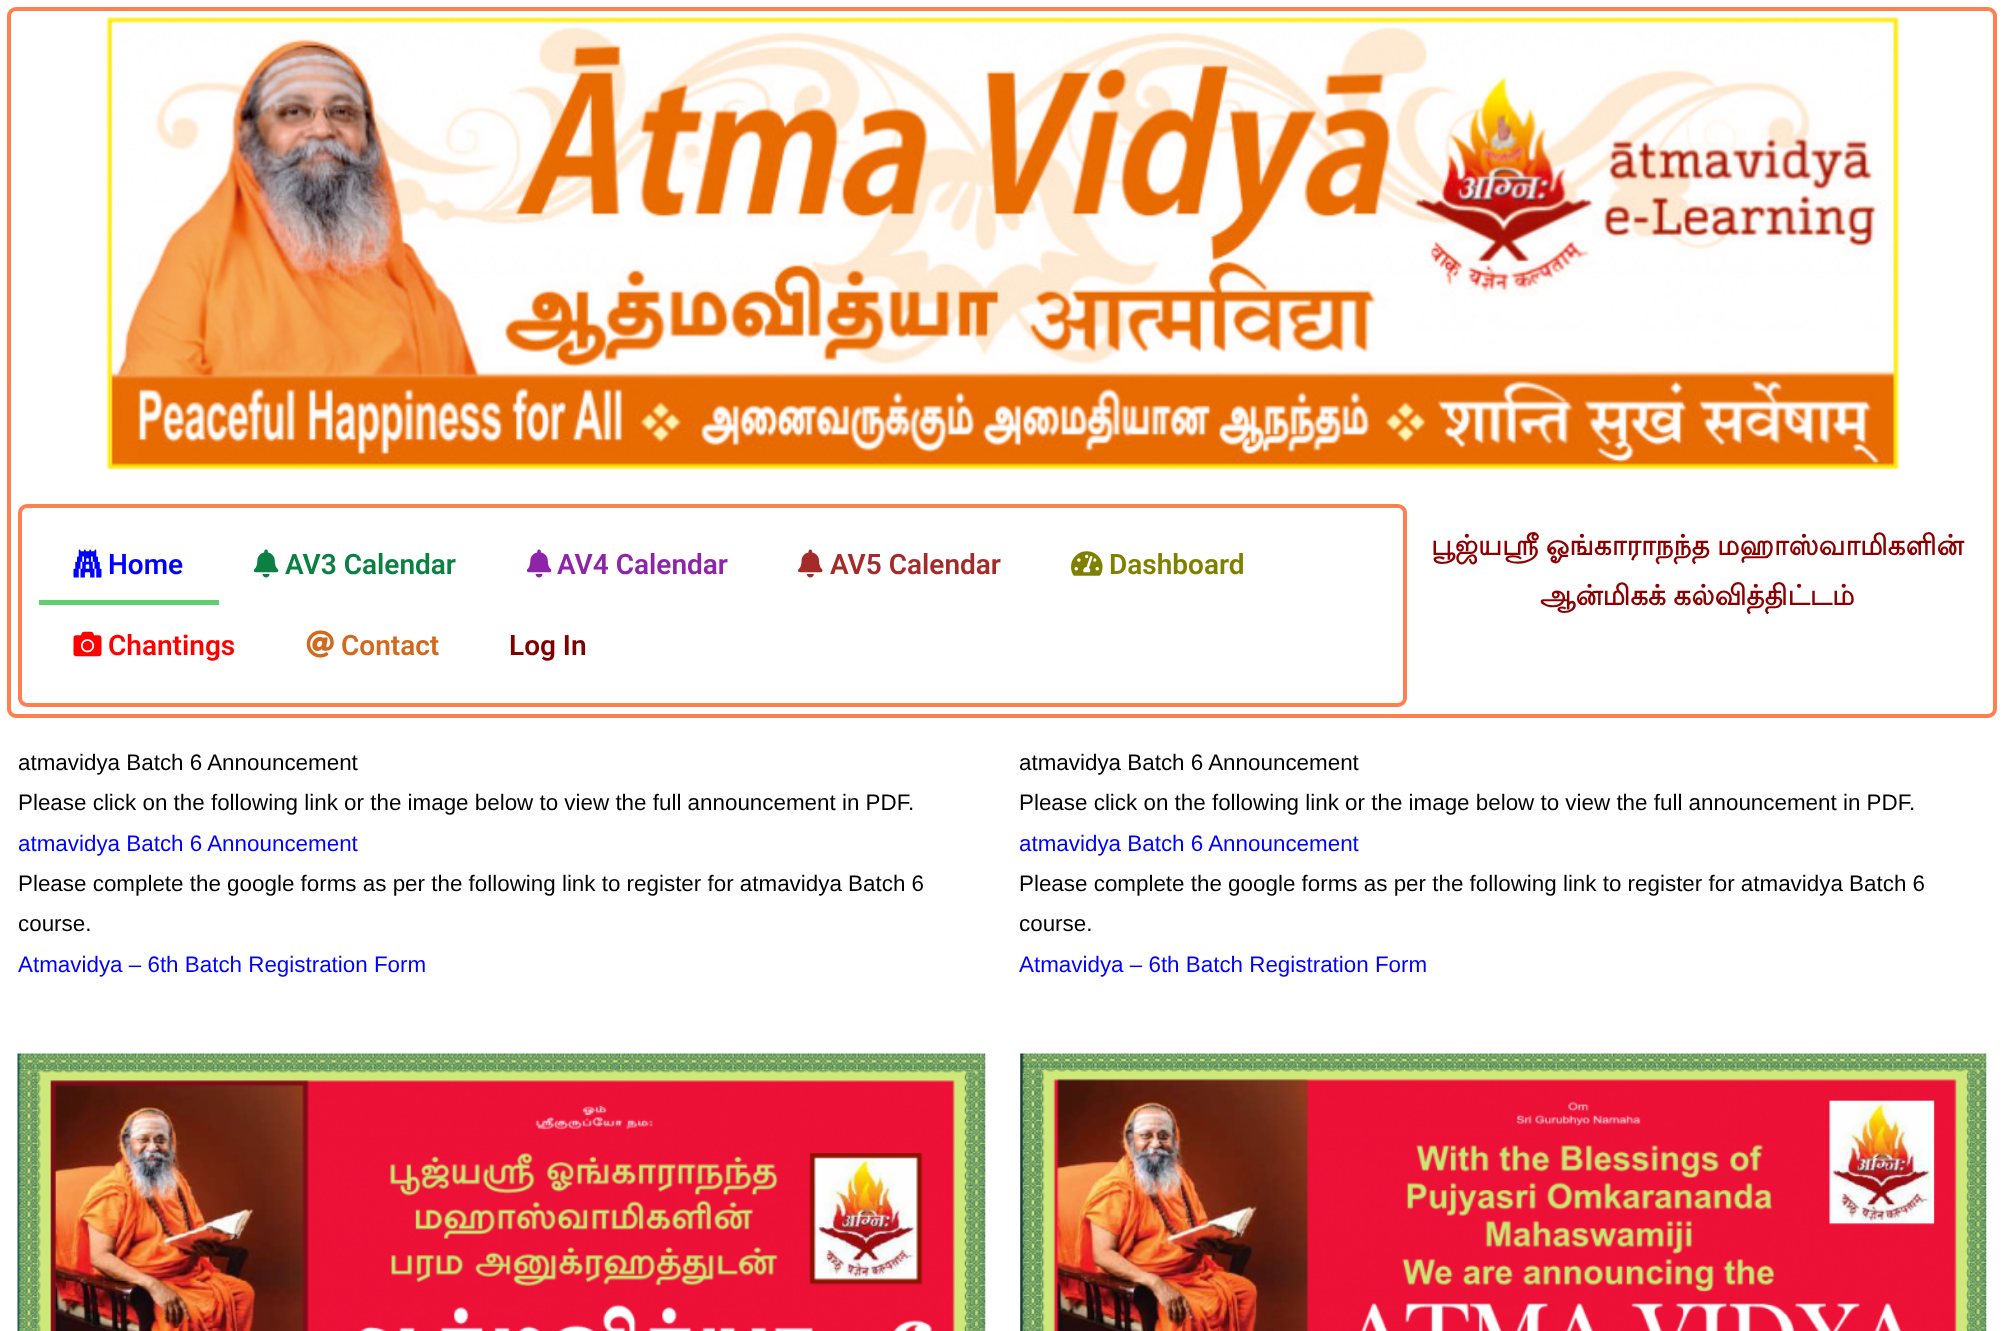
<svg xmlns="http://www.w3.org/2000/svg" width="2003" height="1331">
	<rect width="100%" height="100%" fill="#FFFFFF" />
	<rect x="9" y="9" width="1986" height="707" rx="7" fill="none" stroke="#FF7F50" stroke-width="4" />
	<image x="106" y="17" width="1793" height="452" href="assets/img1.png" />
	<rect x="20" y="506" width="1385" height="199" rx="7" fill="none" stroke="#FF7F50" stroke-width="4" />
	<image x="73" y="549" width="29" height="29" href="assets/img2.png" />
	<text x="108" y="574" font-family="Roboto" font-size="28" font-weight="600" fill="#0000FF">Home</text>
	<rect x="39" y="600" width="180" height="5" fill="#61CE70" />
	<image x="253" y="549" width="26" height="29" href="assets/img3.png" />
	<text x="285" y="574" font-family="Roboto" font-size="28" font-weight="600" fill="#0B8043">AV3 Calendar</text>
	<image x="526" y="549" width="26" height="29" href="assets/img4.png" />
	<text x="557" y="574" font-family="Roboto" font-size="28" font-weight="600" fill="#8E24AA">AV4 Calendar</text>
	<image x="798" y="549" width="25" height="29" href="assets/img5.png" />
	<text x="830" y="574" font-family="Roboto" font-size="28" font-weight="600" fill="#A52A2A">AV5 Calendar</text>
	<image x="1071" y="551" width="32" height="25" href="assets/img6.png" />
	<text x="1109" y="574" font-family="Roboto" font-size="28" font-weight="600" fill="#808000">Dashboard</text>
	<image x="73" y="631" width="29" height="26" href="assets/img7.png" />
	<text x="108" y="655" font-family="Roboto" font-size="28" font-weight="600" fill="#FF0000">Chantings</text>
	<image x="306" y="630" width="28" height="28" href="assets/img8.png" />
	<text x="341" y="655" font-family="Roboto" font-size="28" font-weight="600" fill="#D2691E">Contact</text>
	<text x="509" y="655" font-family="Roboto" font-size="28" font-weight="600" fill="#800000">Log In</text>
	<g font-family="Lohit Tamil" font-size="28" font-weight="700" fill="#8B0000">
		<text x="1431" y="555" word-spacing="-1">பூஜ்யஸ்ரீ ஓங்காராநந்த மஹாஸ்வாமிகளின்</text>
		<text x="1540" y="605" word-spacing="-1">ஆன்மிகக் கல்வித்திட்டம்</text>
	</g>
	<g font-family="Liberation Sans" font-size="22.4" fill="#000000">
		<text x="18" y="770">atmavidya Batch 6 Announcement</text>
		<text x="18" y="810">Please click on the following link or the image below to view the full announcement in PDF.</text>
	</g>
	<text x="18" y="851" font-family="Liberation Sans" font-size="22.4" fill="#0000FF">atmavidya Batch 6 Announcement</text>
	<g font-family="Liberation Sans" font-size="22.4" fill="#000000">
		<text x="18" y="891">Please complete the google forms as per the following link to register for atmavidya Batch 6</text>
		<text x="18" y="931">course.</text>
	</g>
	<text x="18" y="972" font-family="Liberation Sans" font-size="22.4" fill="#0000FF">Atmavidya – 6th Batch Registration Form</text>
	<image x="17" y="1053" width="969" height="278" href="assets/img9.png" />
	<g font-family="Liberation Sans" font-size="22.4" fill="#000000">
		<text x="1019" y="770">atmavidya Batch 6 Announcement</text>
		<text x="1019" y="810">Please click on the following link or the image below to view the full announcement in PDF.</text>
	</g>
	<text x="1019" y="851" font-family="Liberation Sans" font-size="22.4" fill="#0000FF">atmavidya Batch 6 Announcement</text>
	<g font-family="Liberation Sans" font-size="22.4" fill="#000000">
		<text x="1019" y="891">Please complete the google forms as per the following link to register for atmavidya Batch 6</text>
		<text x="1019" y="931">course.</text>
	</g>
	<text x="1019" y="972" font-family="Liberation Sans" font-size="22.4" fill="#0000FF">Atmavidya – 6th Batch Registration Form</text>
	<image x="1020" y="1053" width="967" height="278" href="assets/img10.png" />
</svg>
